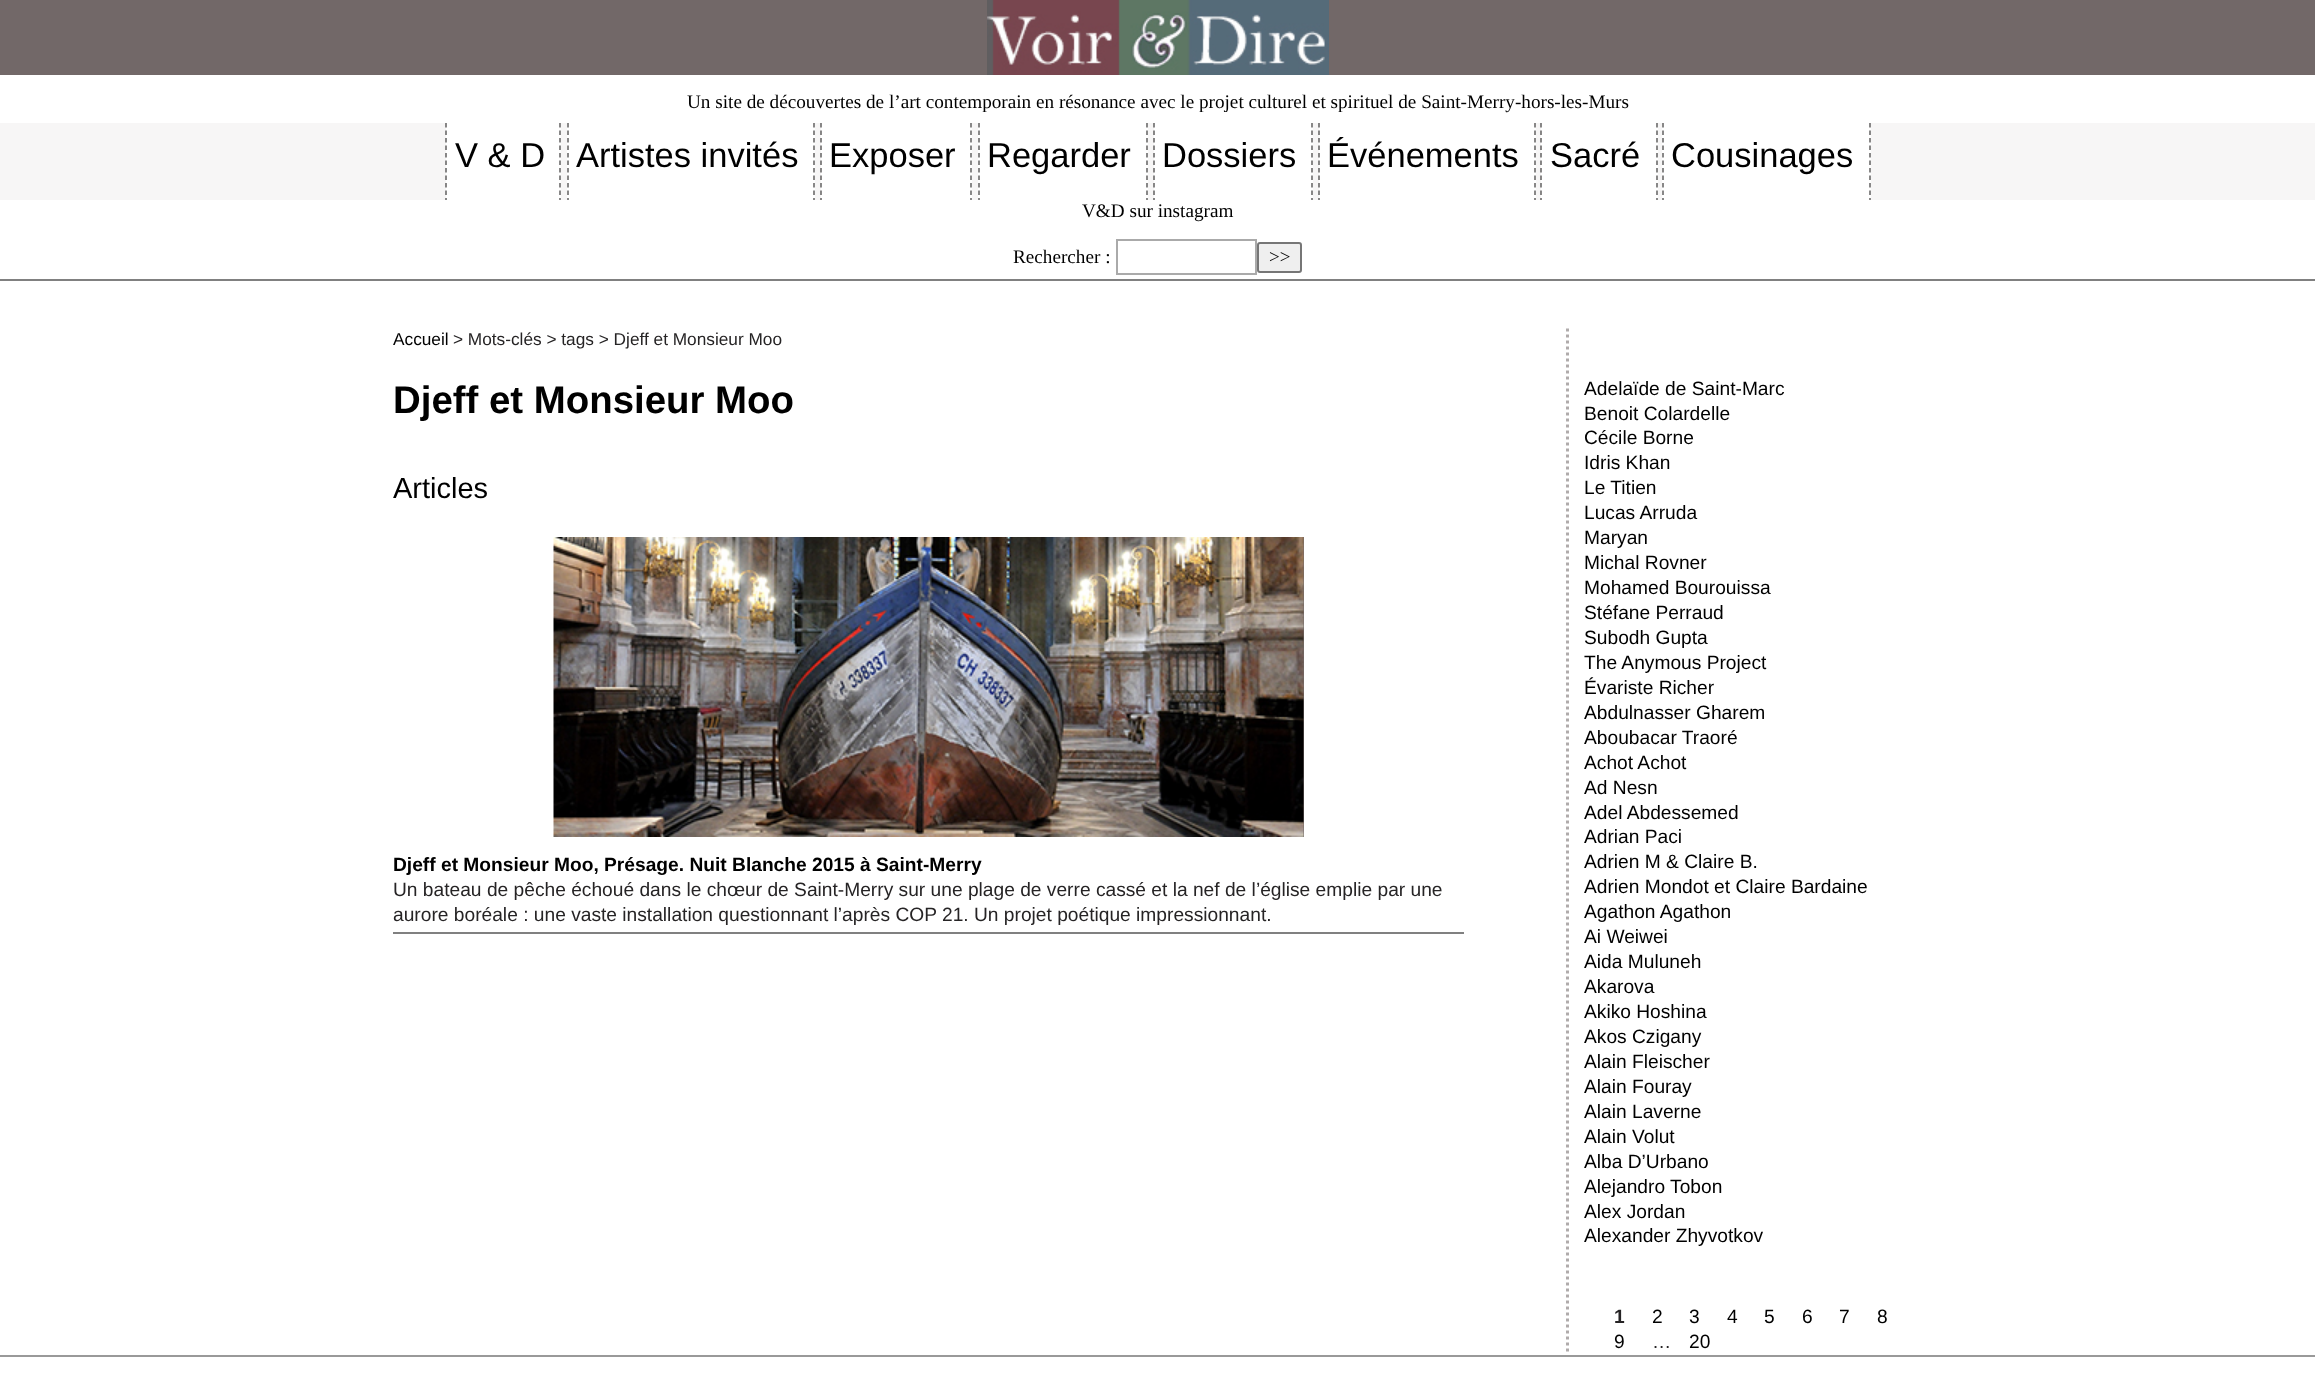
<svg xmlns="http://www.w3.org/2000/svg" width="2315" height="1395">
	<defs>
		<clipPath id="clip1"><rect x="0" y="123" width="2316" height="77" /></clipPath>
	</defs>
	<rect width="100%" height="100%" fill="#FFFFFF" />
	<rect x="0" y="0" width="2315" height="75" fill="#726868" />
	<image x="987" y="0" width="342" height="75" href="assets/img1.png" />
	<text x="687" y="108" font-family="Liberation Serif" font-size="19.2" fill="#000000">Un site de découvertes de l’art contemporain en résonance avec le projet culturel et spirituel de Saint-Merry-hors-les-Murs</text>
	<rect x="0" y="123" width="2315" height="77" fill="#F7F6F6" />
	<rect x="446" y="123" width="115" height="77" fill="#FFFFFF" />
	<g clip-path="url(#clip1)">
		<path d="M560 123V225" fill="none" stroke="#616060" stroke-width="1.5" stroke-dasharray="4.5 3" />
		<path d="M446 123V225" fill="none" stroke="#616060" stroke-width="1.5" stroke-dasharray="4.5 3" />
	</g>
	<text x="455" y="167" font-family="Liberation Sans" font-size="34.5" fill="#000000">V &amp; D</text>
	<rect x="567" y="123" width="248" height="77" fill="#FFFFFF" />
	<g clip-path="url(#clip1)">
		<path d="M814 123V225" fill="none" stroke="#616060" stroke-width="1.5" stroke-dasharray="4.5 3" />
		<path d="M568 123V225" fill="none" stroke="#616060" stroke-width="1.5" stroke-dasharray="4.5 3" />
	</g>
	<text x="576" y="167" font-family="Liberation Sans" font-size="34.5" fill="#000000">Artistes invités</text>
	<rect x="821" y="123" width="151" height="77" fill="#FFFFFF" />
	<g clip-path="url(#clip1)">
		<path d="M971 123V225" fill="none" stroke="#616060" stroke-width="1.5" stroke-dasharray="4.5 3" />
		<path d="M821 123V225" fill="none" stroke="#616060" stroke-width="1.5" stroke-dasharray="4.5 3" />
	</g>
	<text x="829" y="167" font-family="Liberation Sans" font-size="34.5" fill="#000000">Exposer</text>
	<rect x="978" y="123" width="170" height="77" fill="#FFFFFF" />
	<g clip-path="url(#clip1)">
		<path d="M1147 123V225" fill="none" stroke="#616060" stroke-width="1.5" stroke-dasharray="4.5 3" />
		<path d="M979 123V225" fill="none" stroke="#616060" stroke-width="1.5" stroke-dasharray="4.5 3" />
	</g>
	<text x="987" y="167" font-family="Liberation Sans" font-size="34.5" fill="#000000">Regarder</text>
	<rect x="1154" y="123" width="159" height="77" fill="#FFFFFF" />
	<g clip-path="url(#clip1)">
		<path d="M1312 123V225" fill="none" stroke="#616060" stroke-width="1.5" stroke-dasharray="4.5 3" />
		<path d="M1154 123V225" fill="none" stroke="#616060" stroke-width="1.5" stroke-dasharray="4.5 3" />
	</g>
	<text x="1162" y="167" font-family="Liberation Sans" font-size="34.5" fill="#000000">Dossiers</text>
	<rect x="1319" y="123" width="217" height="77" fill="#FFFFFF" />
	<g clip-path="url(#clip1)">
		<path d="M1535 123V225" fill="none" stroke="#616060" stroke-width="1.5" stroke-dasharray="4.5 3" />
		<path d="M1319 123V225" fill="none" stroke="#616060" stroke-width="1.5" stroke-dasharray="4.5 3" />
	</g>
	<text x="1327" y="167" font-family="Liberation Sans" font-size="34.5" fill="#000000">Événements</text>
	<rect x="1541" y="123" width="117" height="77" fill="#FFFFFF" />
	<g clip-path="url(#clip1)">
		<path d="M1657 123V225" fill="none" stroke="#616060" stroke-width="1.5" stroke-dasharray="4.5 3" />
		<path d="M1541 123V225" fill="none" stroke="#616060" stroke-width="1.5" stroke-dasharray="4.5 3" />
	</g>
	<text x="1550" y="167" font-family="Liberation Sans" font-size="34.5" fill="#000000">Sacré</text>
	<rect x="1662" y="123" width="209" height="77" fill="#FFFFFF" />
	<g clip-path="url(#clip1)">
		<path d="M1870 123V225" fill="none" stroke="#616060" stroke-width="1.5" stroke-dasharray="4.5 3" />
		<path d="M1663 123V225" fill="none" stroke="#616060" stroke-width="1.5" stroke-dasharray="4.5 3" />
	</g>
	<text x="1671" y="167" font-family="Liberation Sans" font-size="34.5" fill="#000000">Cousinages</text>
	<g font-family="Liberation Serif" font-size="19.2" fill="#000000">
		<text x="1082" y="217">V&amp;D sur instagram</text>
		<text x="1013" y="263">Rechercher :</text>
	</g>
	<rect x="1117" y="240" width="139" height="34" fill="none" stroke="#AAAAAA" stroke-width="2" />
	<rect x="1258" y="243" width="43" height="29" rx="2" fill="#EFEFEF" stroke="#767676" stroke-width="2" />
	<text x="1269" y="263" font-family="Liberation Serif" font-size="19.2" fill="#000000">&gt;&gt;</text>
	<rect x="0" y="279" width="2315" height="2" fill="#808080" />
	<text x="393" y="345" font-family="Liberation Sans" font-size="17.25" fill="#000000">Accueil</text>
	<text x="453" y="345" font-family="Liberation Sans" font-size="17.25" fill="#262425">&gt; Mots-clés &gt; tags &gt; Djeff et Monsieur Moo</text>
	<text x="393" y="413" font-family="Liberation Sans" font-size="38.4" font-weight="700" fill="#000000">Djeff et Monsieur Moo</text>
	<text x="393" y="498" font-family="Liberation Sans" font-size="29" fill="#000000">Articles</text>
	<rect x="1303" y="537" width="1" height="300" fill="#726868" />
	<image x="553" y="537" width="751" height="300" href="assets/img2.png" />
	<text x="393" y="871" font-family="Liberation Sans" font-size="19.2" font-weight="700" fill="#000000">Djeff et Monsieur Moo, Présage. Nuit Blanche 2015 à Saint-Merry</text>
	<g font-family="Liberation Sans" font-size="19.2" fill="#262425">
		<text x="393" y="896">Un bateau de pêche échoué dans le chœur de Saint-Merry sur une plage de verre cassé et la nef de l’église emplie par une</text>
		<text x="393" y="921">aurore boréale : une vaste installation questionnant l’après COP 21. Un projet poétique impressionnant.</text>
	</g>
	<rect x="393" y="932" width="1071" height="2" fill="#808080" />
	<path d="M1567.5 328.5V1354.5" fill="none" stroke="#B0ABAB" stroke-width="3" stroke-dasharray="3 3" />
	<g font-family="Liberation Sans" font-size="19.2" fill="#000000">
		<text x="1584" y="395">Adelaïde de Saint-Marc</text>
		<text x="1584" y="420">Benoit Colardelle</text>
		<text x="1584" y="444">Cécile Borne</text>
		<text x="1584" y="469">Idris Khan</text>
		<text x="1584" y="494">Le Titien</text>
		<text x="1584" y="519">Lucas Arruda</text>
		<text x="1584" y="544">Maryan</text>
		<text x="1584" y="569">Michal Rovner</text>
		<text x="1584" y="594">Mohamed Bourouissa</text>
		<text x="1584" y="619">Stéfane Perraud</text>
		<text x="1584" y="644">Subodh Gupta</text>
		<text x="1584" y="669">The Anymous Project</text>
		<text x="1584" y="694">Évariste Richer</text>
		<text x="1584" y="719">Abdulnasser Gharem</text>
		<text x="1584" y="744">Aboubacar Traoré</text>
		<text x="1584" y="769">Achot Achot</text>
		<text x="1584" y="794">Ad Nesn</text>
		<text x="1584" y="819">Adel Abdessemed</text>
		<text x="1584" y="843">Adrian Paci</text>
		<text x="1584" y="868">Adrien M &amp; Claire B.</text>
		<text x="1584" y="893">Adrien Mondot et Claire Bardaine</text>
		<text x="1584" y="918">Agathon Agathon</text>
		<text x="1584" y="943">Ai Weiwei</text>
		<text x="1584" y="968">Aida Muluneh</text>
		<text x="1584" y="993">Akarova</text>
		<text x="1584" y="1018">Akiko Hoshina</text>
		<text x="1584" y="1043">Akos Czigany</text>
		<text x="1584" y="1068">Alain Fleischer</text>
		<text x="1584" y="1093">Alain Fouray</text>
		<text x="1584" y="1118">Alain Laverne</text>
		<text x="1584" y="1143">Alain Volut</text>
		<text x="1584" y="1168">Alba D’Urbano</text>
		<text x="1584" y="1193">Alejandro Tobon</text>
		<text x="1584" y="1218">Alex Jordan</text>
		<text x="1584" y="1242">Alexander Zhyvotkov</text>
	</g>
	<text x="1614" y="1323" font-family="Liberation Sans" font-size="19.2" font-weight="700" fill="#262425">1</text>
	<g font-family="Liberation Sans" font-size="19.2" fill="#000000">
		<text x="1652" y="1323">2</text>
		<text x="1689" y="1323">3</text>
		<text x="1727" y="1323">4</text>
		<text x="1764" y="1323">5</text>
		<text x="1802" y="1323">6</text>
		<text x="1839" y="1323">7</text>
		<text x="1877" y="1323">8</text>
		<text x="1614" y="1348">9</text>
	</g>
	<text x="1652" y="1348" font-family="Liberation Sans" font-size="19.2" fill="#262425">…</text>
	<text x="1689" y="1348" font-family="Liberation Sans" font-size="19.2" fill="#000000">20</text>
	<rect x="0" y="1355" width="2315" height="2" fill="#999999" />
</svg>
